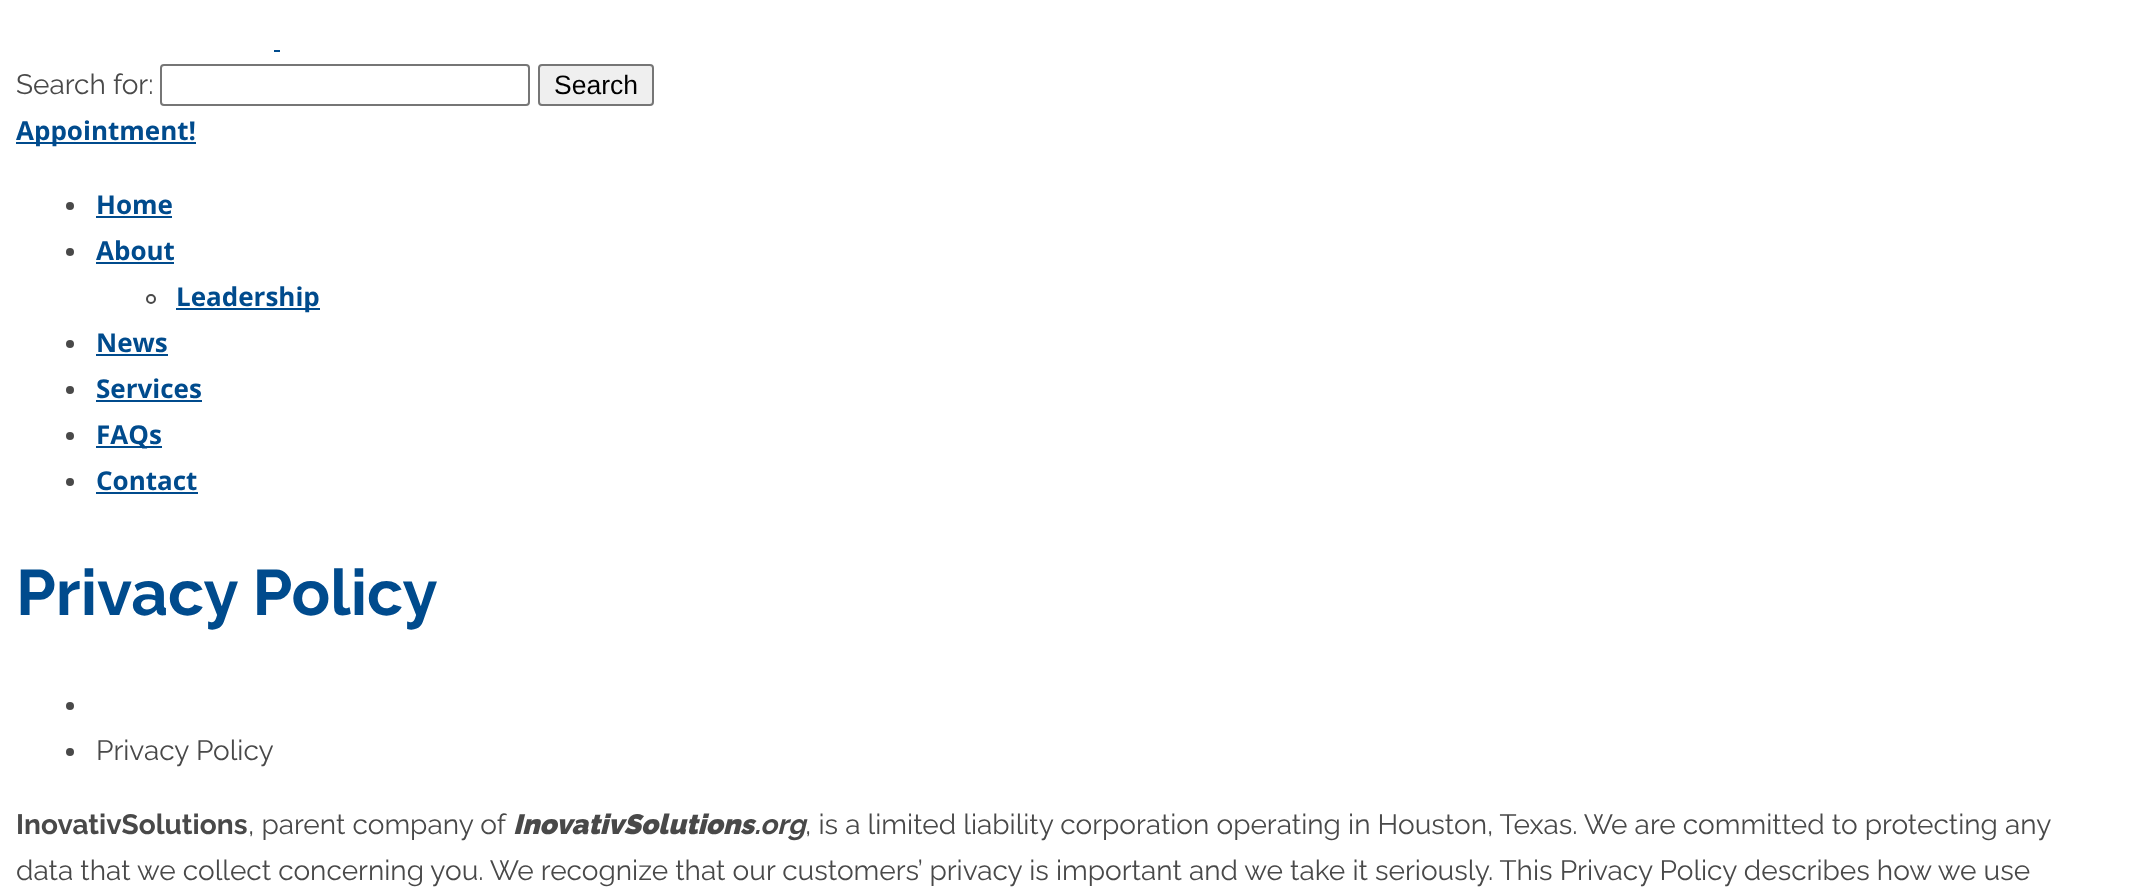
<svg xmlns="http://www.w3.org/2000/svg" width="2129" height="896">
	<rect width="100%" height="100%" fill="#FFFFFF" />
	<rect x="274" y="50" width="6" height="2" fill="#004B8D" />
	<text x="16" y="94" font-family="Raleway" font-size="28" fill="#494949">Search for:</text>
	<rect x="161" y="65" width="368" height="40" rx="3" fill="none" stroke="#767676" stroke-width="2" />
	<rect x="539" y="65" width="114" height="40" rx="3" fill="#EFEFEF" stroke="#767676" stroke-width="2" />
	<text x="554" y="94" font-family="Liberation Sans" font-size="26.5" fill="#000000">Search</text>
	<rect x="16" y="142" width="180" height="2" fill="#004B8D" />
	<text x="16" y="140" font-family="Open Sans" font-size="26" font-weight="700" fill="#004B8D">Appointment!</text>
	<circle cx="70" cy="206" r="4" fill="#494949" />
	<text x="96" y="214" font-family="Open Sans" font-size="26" font-weight="700" fill="#004B8D">Home</text>
	<rect x="96" y="216" width="76" height="2" fill="#004B8D" />
	<circle cx="70" cy="252" r="4" fill="#494949" />
	<text x="96" y="260" font-family="Open Sans" font-size="26" font-weight="700" fill="#004B8D">About</text>
	<rect x="96" y="262" width="78" height="2" fill="#004B8D" />
	<circle cx="151" cy="299" r="4" fill="none" stroke="#494949" stroke-width="2" />
	<rect x="176" y="308" width="144" height="2" fill="#004B8D" />
	<text x="176" y="306" font-family="Open Sans" font-size="26" font-weight="700" fill="#004B8D">Leadership</text>
	<circle cx="70" cy="344" r="4" fill="#494949" />
	<text x="96" y="352" font-family="Open Sans" font-size="26" font-weight="700" fill="#004B8D">News</text>
	<rect x="96" y="354" width="72" height="2" fill="#004B8D" />
	<circle cx="70" cy="390" r="4" fill="#494949" />
	<text x="96" y="398" font-family="Open Sans" font-size="26" font-weight="700" fill="#004B8D">Services</text>
	<rect x="96" y="400" width="106" height="2" fill="#004B8D" />
	<circle cx="70" cy="436" r="4" fill="#494949" />
	<rect x="96" y="446" width="66" height="2" fill="#004B8D" />
	<text x="96" y="444" font-family="Open Sans" font-size="26" font-weight="700" fill="#004B8D">FAQs</text>
	<circle cx="70" cy="482" r="4" fill="#494949" />
	<text x="96" y="490" font-family="Open Sans" font-size="26" font-weight="700" fill="#004B8D">Contact</text>
	<rect x="96" y="492" width="102" height="2" fill="#004B8D" />
	<text x="16" y="615" font-family="Raleway" font-size="64" font-weight="700" fill="#004B8D">Privacy Policy</text>
	<circle cx="70" cy="706" r="4" fill="#494949" />
	<circle cx="70" cy="752" r="4" fill="#494949" />
	<text x="96" y="760" font-family="Raleway" font-size="28" fill="#494949">Privacy Policy</text>
	<text x="16" y="834" font-family="Raleway" font-size="28" font-weight="700" fill="#494949">InovativSolutions</text>
	<text x="248" y="834" font-family="Raleway" font-size="28" fill="#494949">, parent company of</text>
	<text x="513" y="834" font-family="Raleway" font-size="28" font-weight="900" font-style="italic" fill="#494949">InovativSolutions</text>
	<text x="754" y="834" font-family="Raleway" font-size="28" font-weight="700" font-style="italic" fill="#494949">.org</text>
	<g font-family="Raleway" font-size="28" fill="#494949">
		<text x="805" y="834">, is a limited liability corporation operating in Houston, Texas. We are committed to protecting any</text>
		<text x="16" y="880">data that we collect concerning you. We recognize that our customers’ privacy is important and we take it seriously. This Privacy Policy describes how we use</text>
	</g>
</svg>
